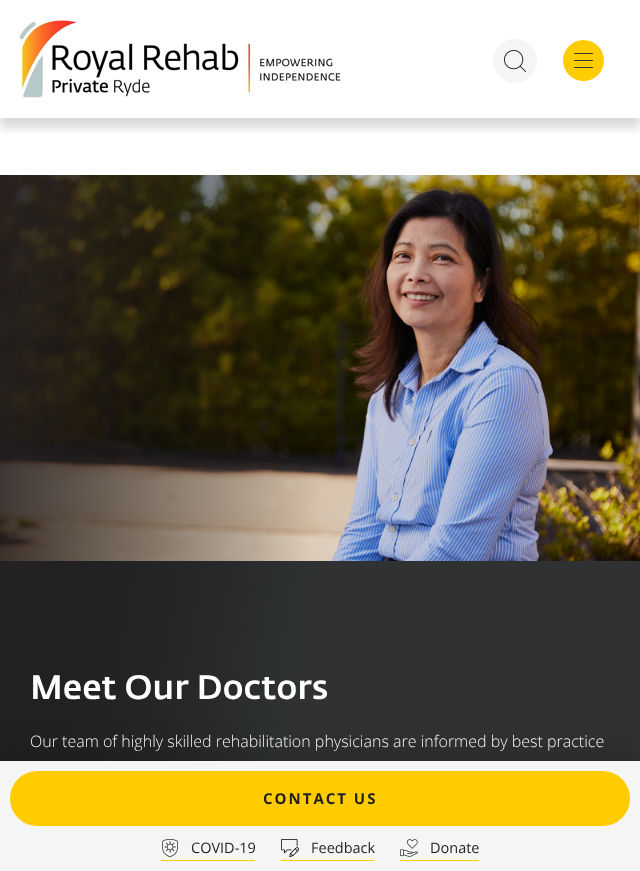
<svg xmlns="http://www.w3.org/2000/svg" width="640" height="871">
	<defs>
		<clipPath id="clip1"><rect x="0" y="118" width="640" height="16" /></clipPath>
		<linearGradient id="g1" gradientUnits="userSpaceOnUse" x1="-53" y1="476" x2="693" y2="607"><stop offset="0.05" stop-color="#231F20" stop-opacity="0.89" /><stop offset="0.49" stop-color="#000000" stop-opacity="0.12" /></linearGradient>
	</defs>
	<rect width="100%" height="100%" fill="#FFFFFF" />
	<g clip-path="url(#clip1)">
		<rect x="0" y="10" width="640" height="118" fill="#000000" fill-opacity="0.15" filter="blur(5px)" />
	</g>
	<image x="19" y="19" width="322" height="79" href="assets/img1.png" />
	<circle cx="515" cy="61" r="22" fill="#F5F5F5" />
	<image x="504" y="50" width="22" height="22" href="assets/img2.png" />
	<circle cx="583.5" cy="60.5" r="20.5" fill="#FFCC00" />
	<rect x="574" y="53" width="19" height="1" fill="#33373D" />
	<rect x="574" y="60" width="19" height="1" fill="#33373D" />
	<rect x="574" y="67" width="19" height="1" fill="#33373D" />
	<rect x="0" y="561" width="640" height="200" fill="#353839" />
	<image x="0" y="175" width="640" height="386" href="assets/img3.png" />
	<rect x="0" y="175" width="640" height="586" fill="url(#g1)" />
	<text x="30" y="699" font-family="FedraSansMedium" font-size="33.5" font-weight="500" fill="#FFFFFF">Meet Our Doctors</text>
	<text x="30" y="747" font-family="Open Sans" font-size="16" font-weight="300" fill="#FFFFFF">Our team of highly skilled rehabilitation physicians are informed by best practice</text>
	<rect x="0" y="751" width="640" height="110" fill="#000000" fill-opacity="0.15" filter="blur(15px)" />
	<rect x="0" y="761" width="640" height="110" fill="#F5F5F5" />
	<rect x="11" y="772" width="618" height="53" rx="26.5" fill="#FFCC00" stroke="#FFCC00" stroke-width="2" />
	<text x="263" y="804" font-family="Open Sans" font-size="15" font-weight="700" letter-spacing="2" fill="#231F20">CONTACT US</text>
	<rect x="161" y="860" width="94" height="1" fill="#FFCC00" />
	<image x="162" y="839" width="16" height="18" href="assets/img4.png" />
	<text x="191" y="853" font-family="Open Sans" font-size="14.5" fill="#231F20">COVID-19</text>
	<rect x="281" y="860" width="93" height="1" fill="#FFCC00" />
	<image x="281" y="839" width="18" height="18" href="assets/img5.png" />
	<text x="311" y="853" font-family="Open Sans" font-size="14.5" fill="#231F20">Feedback</text>
	<rect x="400" y="860" width="79" height="1" fill="#FFCC00" />
	<image x="400" y="839" width="18" height="18" href="assets/img6.png" />
	<text x="430" y="853" font-family="Open Sans" font-size="14.5" fill="#231F20">Donate</text>
</svg>
